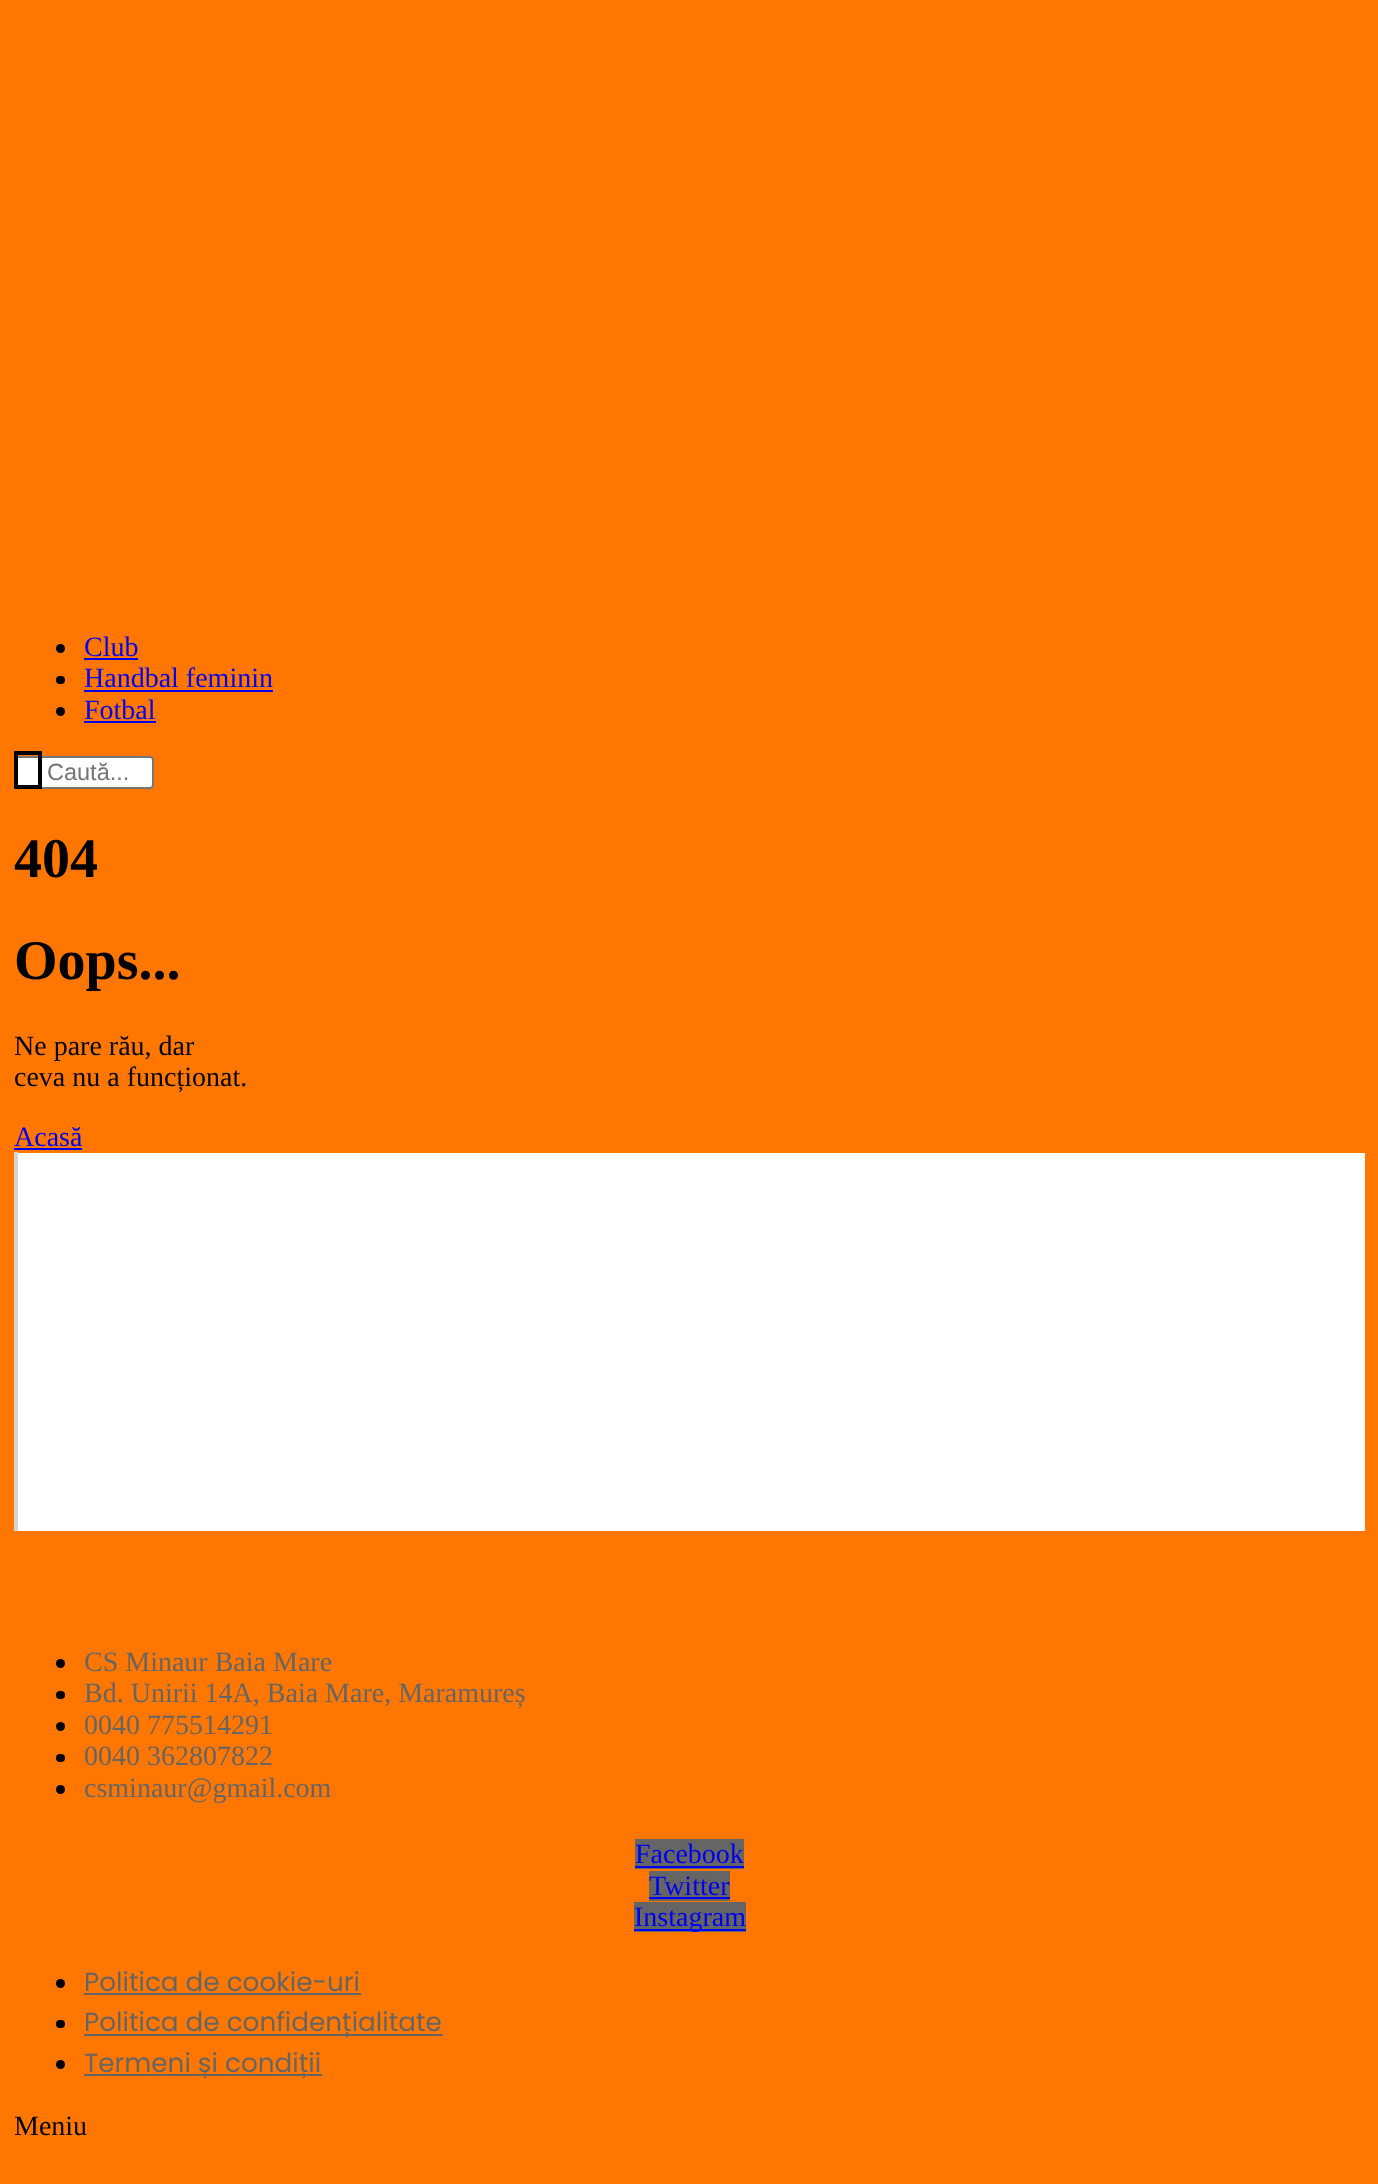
<svg xmlns="http://www.w3.org/2000/svg" width="1378" height="2184">
	<rect width="100%" height="100%" fill="#FF7700" />
	<circle cx="60.5" cy="648.5" r="4.5" fill="#000000" />
	<text x="84" y="656" font-family="Liberation Serif" font-size="28" fill="#0000EE">Club</text>
	<rect x="84" y="658" width="54" height="2" fill="#0000EE" />
	<rect x="56" y="676" width="9" height="8" rx="4" fill="#000000" />
	<text x="84" y="687" font-family="Liberation Serif" font-size="28" fill="#0000EE">Handbal feminin</text>
	<rect x="84" y="690" width="189" height="2" fill="#0000EE" />
	<circle cx="60.5" cy="711.5" r="4.5" fill="#000000" />
	<text x="84" y="719" font-family="Liberation Serif" font-size="28" fill="#0000EE">Fotbal</text>
	<rect x="84" y="721" width="72" height="2" fill="#0000EE" />
	<rect x="15" y="757" width="138" height="31" rx="3" fill="#FFFFFF" stroke="#767676" stroke-width="2" />
	<rect x="16" y="753" width="24" height="34" fill="none" stroke="#000000" stroke-width="4" />
	<text x="47" y="780" font-family="Liberation Sans" font-size="23.5" fill="#757575">Caută...</text>
	<g font-family="Liberation Serif" font-size="56" font-weight="700" fill="#000000">
		<text x="14" y="877">404</text>
		<text x="14" y="979">Oops...</text>
	</g>
	<g font-family="Liberation Serif" font-size="28" fill="#000000">
		<text x="14" y="1055">Ne pare rău, dar</text>
		<text x="14" y="1086">ceva nu a funcționat.</text>
	</g>
	<text x="14" y="1146" font-family="Liberation Serif" font-size="28" fill="#0000EE">Acasă</text>
	<rect x="14" y="1148" width="68" height="2" fill="#0000EE" />
	<rect x="18" y="1153" width="1347" height="378" fill="#FFFFFF" />
	<rect x="14" y="1152" width="4" height="379" fill="#D6D4D4" />
	<circle cx="60.5" cy="1663.5" r="4.5" fill="#000000" />
	<text x="84" y="1671" font-family="Liberation Serif" font-size="28" fill="#656565">CS Minaur Baia Mare</text>
	<rect x="56" y="1691" width="9" height="8" rx="4" fill="#000000" />
	<text x="84" y="1702" font-family="Liberation Serif" font-size="28" fill="#656565">Bd. Unirii 14A, Baia Mare, Maramureș</text>
	<circle cx="60.5" cy="1726.5" r="4.5" fill="#000000" />
	<text x="84" y="1734" font-family="Liberation Serif" font-size="28" fill="#656565">0040 775514291</text>
	<rect x="56" y="1754" width="9" height="8" rx="4" fill="#000000" />
	<text x="84" y="1765" font-family="Liberation Serif" font-size="28" fill="#656565">0040 362807822</text>
	<circle cx="60.5" cy="1789.5" r="4.5" fill="#000000" />
	<text x="84" y="1797" font-family="Liberation Serif" font-size="28" fill="#656565">csminaur@gmail.com</text>
	<rect x="635" y="1839" width="109" height="30" fill="#656565" />
	<text x="635" y="1863" font-family="Liberation Serif" font-size="28" fill="#0000EE">Facebook</text>
	<rect x="635" y="1866" width="109" height="2" fill="#0000EE" />
	<rect x="649" y="1871" width="81" height="30" fill="#656565" />
	<text x="649" y="1895" font-family="Liberation Serif" font-size="28" fill="#0000EE">Twitter</text>
	<rect x="649" y="1897" width="81" height="2" fill="#0000EE" />
	<rect x="634" y="1902" width="112" height="30" fill="#656565" />
	<rect x="634" y="1929" width="112" height="2" fill="#0000EE" />
	<text x="634" y="1926" font-family="Liberation Serif" font-size="28" fill="#0000EE">Instagram</text>
	<circle cx="60.5" cy="1983.5" r="4.5" fill="#000000" />
	<text x="84" y="1991" font-family="Poppins" font-size="26.25" fill="#656565">Politica de cookie-uri</text>
	<rect x="84" y="1993" width="277" height="2" fill="#656565" />
	<rect x="56" y="2020" width="9" height="8" rx="4" fill="#000000" />
	<rect x="84" y="2034" width="359" height="2" fill="#656565" />
	<text x="84" y="2031" font-family="Poppins" font-size="26.25" fill="#656565">Politica de confidențialitate</text>
	<circle cx="60.5" cy="2064.5" r="4.5" fill="#000000" />
	<rect x="84" y="2074" width="238" height="2" fill="#656565" />
	<text x="84" y="2072" font-family="Poppins" font-size="26.25" fill="#656565">Termeni și condiții</text>
	<text x="14" y="2135" font-family="Liberation Serif" font-size="28" fill="#000000">Meniu</text>
</svg>
